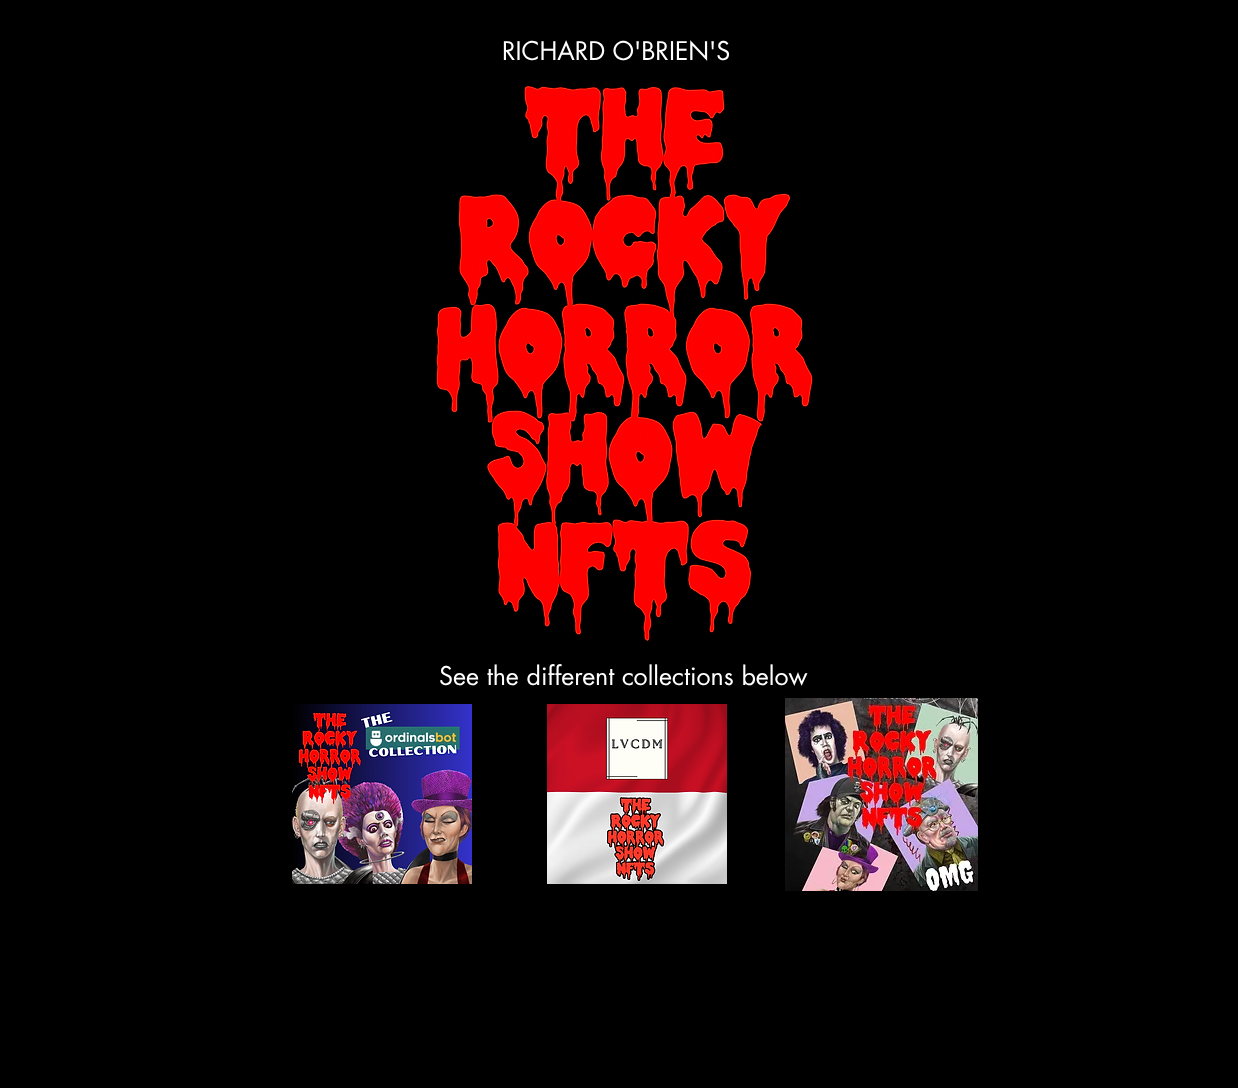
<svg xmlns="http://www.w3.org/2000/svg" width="1238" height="1088">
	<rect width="100%" height="100%" fill="#000000" />
	<text x="502" y="60" font-family="futura" font-size="25" fill="#FFFFFF">RICHARD O'BRIEN'S</text>
	<image x="436" y="86" width="377" height="555" href="assets/img1.png" />
	<text x="439" y="685" font-family="futura" font-size="25" fill="#FFFFFF">See the different collections below</text>
	<image x="292" y="704" width="180" height="180" href="assets/img2.png" />
	<image x="547" y="704" width="180" height="180" href="assets/img3.png" />
	<image x="785" y="698" width="193" height="193" href="assets/img4.png" />
</svg>
